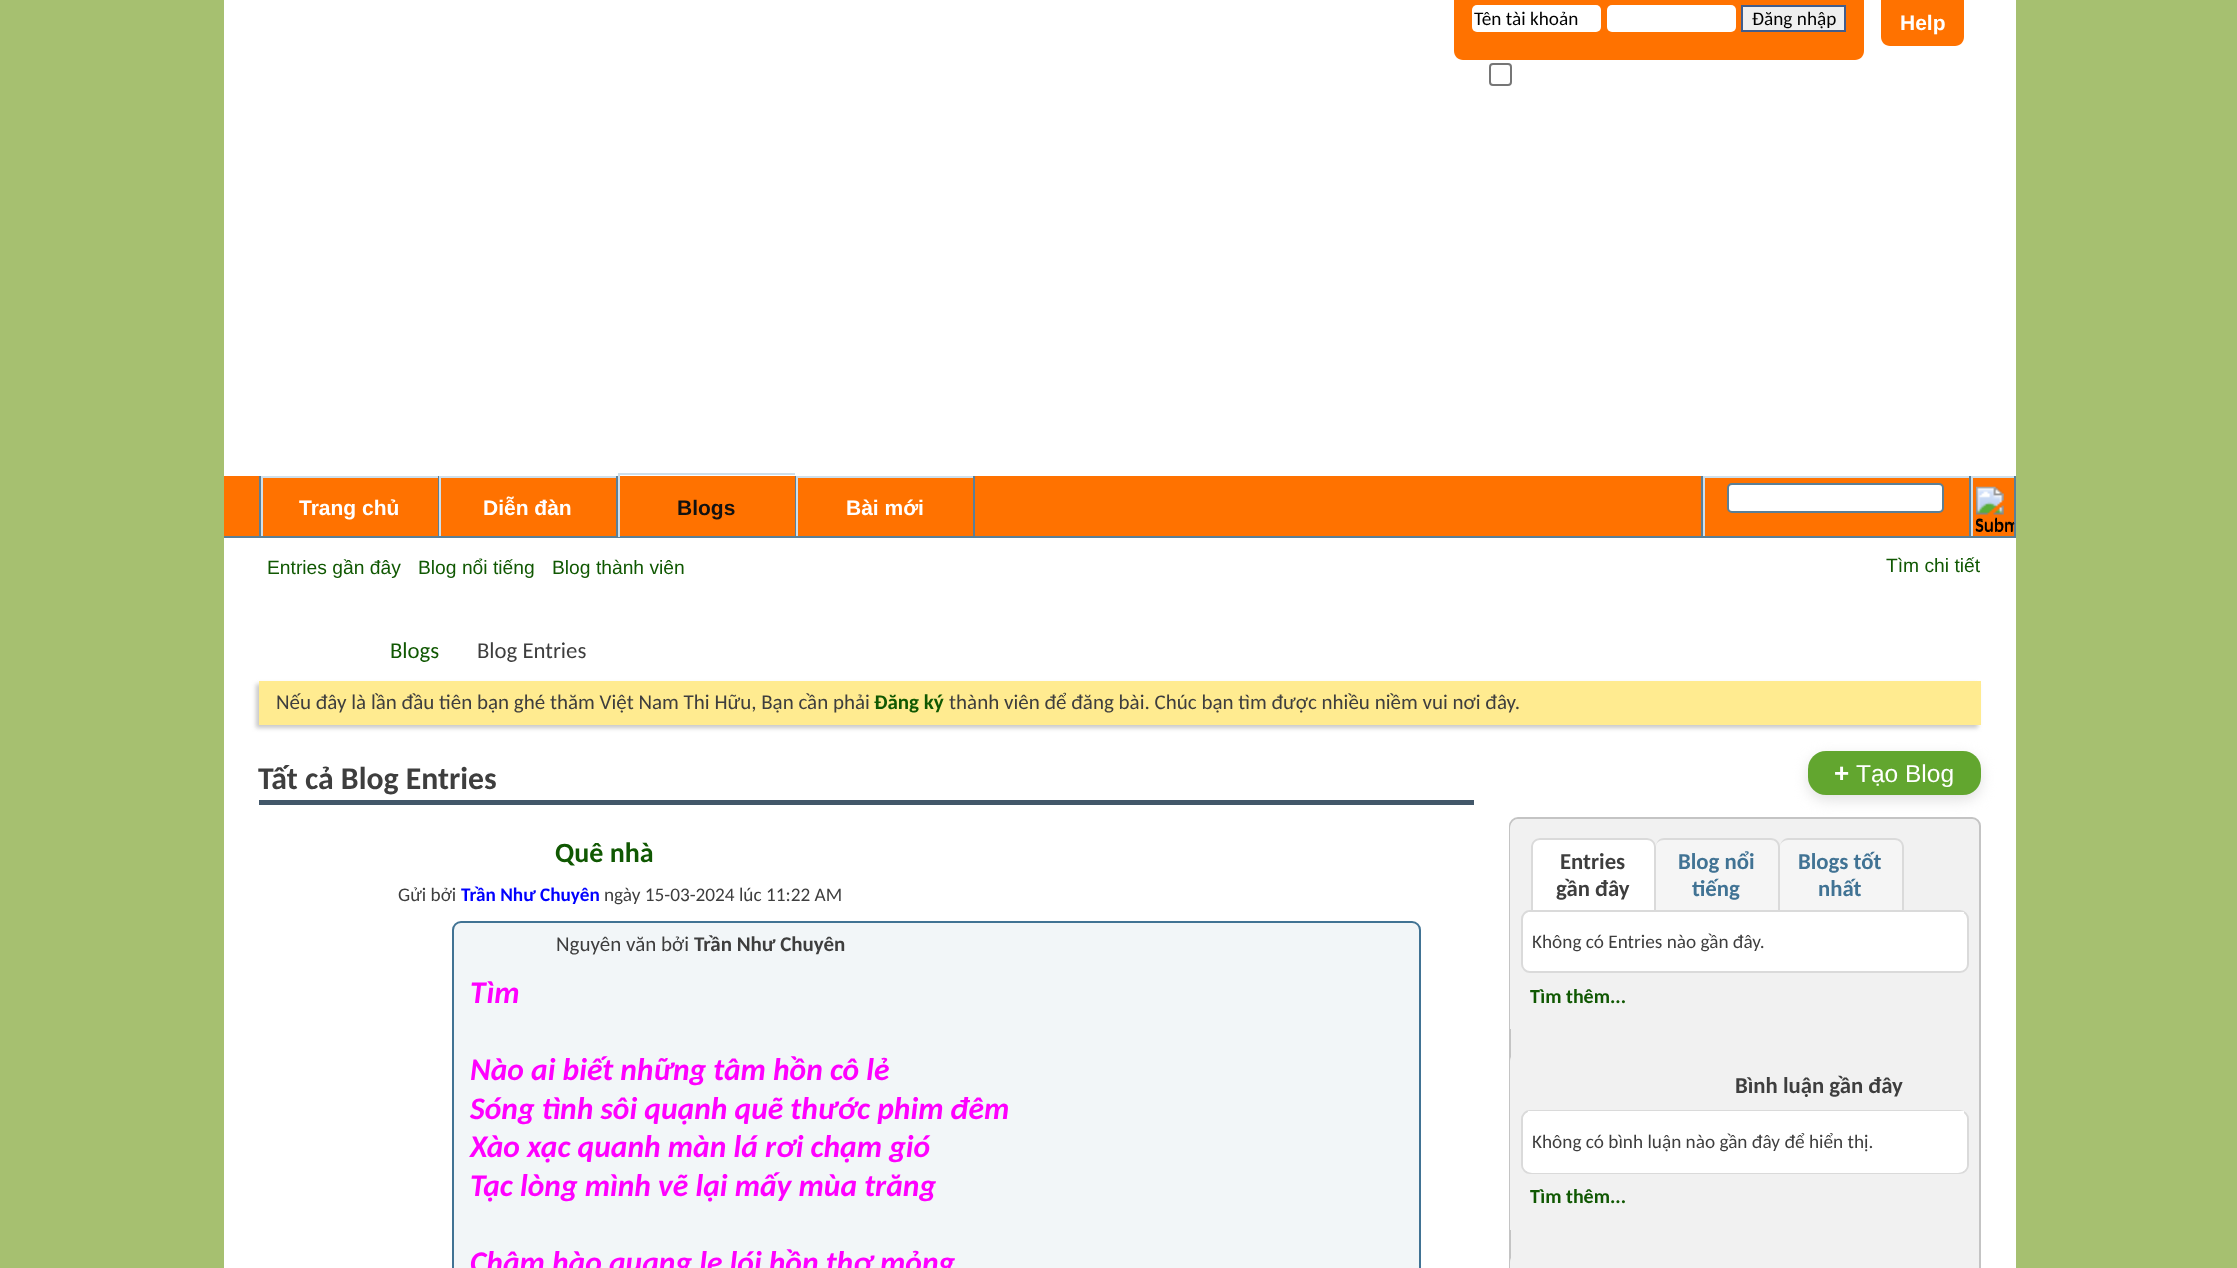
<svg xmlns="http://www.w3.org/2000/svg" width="2237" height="1268">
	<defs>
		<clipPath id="clip1"><rect x="1971" y="476" width="43" height="60" /></clipPath>
	</defs>
	<rect width="100%" height="100%" fill="#A6C070" />
	<rect x="224" y="0" width="1792" height="1268" fill="#FFFFFF" />
	<path d="M1454 0H1864V51C1864 56 1860 60 1855 60H1463C1458 60 1454 56 1454 51Z" fill="#FF7200" />
	<rect x="1472" y="5" width="129" height="27" rx="5" fill="#FFFFFF" />
	<text x="1474" y="25" font-family="Carlito" font-size="19.25" fill="#000000">Tên tài khoản</text>
	<rect x="1607" y="5" width="129" height="27" rx="5" fill="#FFFFFF" />
	<rect x="1742" y="6" width="103" height="25" fill="#EFEFEF" stroke="#415D8D" stroke-width="2" />
	<text x="1752" y="25" font-family="Carlito" font-size="19.25" fill="#000000">Ðăng nhập</text>
	<rect x="1490" y="64" width="21" height="21" rx="3" fill="none" stroke="#767676" stroke-width="2" />
	<path d="M1881 0H1964V37C1964 42 1960 46 1955 46H1890C1885 46 1881 42 1881 37Z" fill="#FF7200" />
	<text x="1900" y="30" font-family="Liberation Sans" font-size="21" font-weight="700" fill="#FFFFFF">Help</text>
	<rect x="224" y="476" width="1790" height="60" fill="#FF7200" />
	<rect x="616" y="476" width="2" height="61" fill="#5A7F97" />
	<rect x="439" y="476" width="177" height="2" fill="#CEDFEB" />
	<rect x="439" y="476" width="2" height="61" fill="#CEDFEB" />
	<text x="483" y="515" font-family="Liberation Sans" font-size="21" font-weight="700" fill="#FFFFFF">Diễn đàn</text>
	<rect x="795" y="476" width="1" height="60" fill="#5A7F97" />
	<rect x="618" y="473" width="177" height="2" fill="#CEDFEB" />
	<rect x="438" y="476" width="1" height="61" fill="#5A7F97" />
	<rect x="259" y="476" width="2" height="61" fill="#5A7F97" />
	<rect x="261" y="476" width="177" height="2" fill="#CEDFEB" />
	<rect x="261" y="476" width="2" height="61" fill="#CEDFEB" />
	<rect x="973" y="476" width="2" height="61" fill="#5A7F97" />
	<rect x="796" y="476" width="177" height="2" fill="#CEDFEB" />
	<rect x="796" y="476" width="2" height="61" fill="#CEDFEB" />
	<rect x="224" y="536" width="1792" height="2" fill="#5A7F97" />
	<rect x="618" y="473" width="2" height="64" fill="#CEDFEB" />
	<text x="677" y="515" font-family="Liberation Sans" font-size="21" font-weight="700" fill="#111111">Blogs</text>
	<g font-family="Liberation Sans" font-size="19.25" fill="#105802">
		<text x="267" y="574">Entries gần đây</text>
		<text x="418" y="574">Blog nổi tiếng</text>
		<text x="552" y="574">Blog thành viên</text>
	</g>
	<g font-family="Liberation Sans" font-size="21" font-weight="700" fill="#FFFFFF">
		<text x="299" y="515">Trang chủ</text>
		<text x="846" y="515">Bài mới</text>
	</g>
	<rect x="1701" y="476" width="2" height="60" fill="#5A7F97" />
	<rect x="1703" y="476" width="266" height="2" fill="#CEDFEB" />
	<rect x="1703" y="476" width="2" height="60" fill="#CEDFEB" />
	<rect x="1728" y="484" width="215" height="28" rx="4" fill="#FFFFFF" stroke="#5A7F97" stroke-width="2" />
	<rect x="2014" y="476" width="2" height="60" fill="#5A7F97" />
	<rect x="1969" y="476" width="2" height="60" fill="#5A7F97" />
	<rect x="1971" y="476" width="43" height="2" fill="#CEDFEB" />
	<rect x="1971" y="476" width="2" height="60" fill="#CEDFEB" />
	<image x="1975" y="486" width="40" height="46" href="assets/img1.png" />
	<g clip-path="url(#clip1)">
		<text x="1975" y="531" font-family="Carlito" font-size="19.25" fill="#000000">Subm</text>
	</g>
	<text x="1886" y="572" font-family="Liberation Sans" font-size="19.25" fill="#105802">Tìm chi tiết</text>
	<text x="390" y="658" font-family="Carlito" font-size="22.75" fill="#105802">Blogs</text>
	<text x="477" y="658" font-family="Carlito" font-size="22.75" fill="#3E3E3E">Blog Entries</text>
	<rect x="256" y="684" width="1722" height="44" fill="#C8C8C8" filter="blur(2px)" />
	<rect x="259" y="681" width="1722" height="44" fill="#FFEB90" />
	<text x="276" y="709" font-family="Carlito" font-size="21" fill="#3E3E3E">Nếu đây là lần đầu tiên bạn ghé thăm Việt Nam Thi Hữu, Bạn cần phải</text>
	<text x="874" y="709" font-family="Carlito" font-size="21" font-weight="700" fill="#105802">Đăng ký</text>
	<text x="949" y="709" font-family="Carlito" font-size="21" fill="#3E3E3E">thành viên để đăng bài. Chúc bạn tìm được nhiều niềm vui nơi đây.</text>
	<rect x="259" y="800" width="1215" height="5" fill="#425769" />
	<text x="258" y="789" font-family="Carlito" font-size="31.75" font-weight="700" fill="#3E3E3E">Tất cả Blog Entries</text>
	<text x="555" y="862" font-family="Carlito" font-size="28" font-weight="700" fill="#105802">Quê nhà</text>
	<text x="398" y="901" font-family="Carlito" font-size="19.25" fill="#3E3E3E">Gửi bởi</text>
	<text x="461" y="901" font-family="Carlito" font-size="19.25" font-weight="700" fill="#0000FF">Trần Như Chuyên</text>
	<text x="604" y="901" font-family="Carlito" font-size="19.25" fill="#3E3E3E">ngày 15-03-2024 lúc 11:22 AM</text>
	<rect x="453" y="922" width="967" height="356" rx="8" fill="#F2F6F8" stroke="#417394" stroke-width="2" />
	<text x="556" y="951" font-family="Carlito" font-size="21" fill="#3E3E3E">Nguyên văn bởi</text>
	<text x="694" y="951" font-family="Carlito" font-size="21" font-weight="700" fill="#3E3E3E">Trần Như Chuyên</text>
	<g font-family="Carlito" font-size="31.5" font-weight="700" font-style="italic" fill="#FF00FF">
		<text x="470" y="1003">Tìm</text>
		<text x="470" y="1080">Nào ai biết những tâm hồn cô lẻ</text>
		<text x="470" y="1119">Sóng tình sôi quạnh quẽ thước phim đêm</text>
		<text x="470" y="1157">Xào xạc quanh màn lá rơi chạm gió</text>
		<text x="470" y="1196">Tạc lòng mình vẽ lại mấy mùa trăng</text>
		<text x="470" y="1273">Châm hào quang le lói hồn thơ mỏng</text>
	</g>
	<rect x="1510" y="818" width="470" height="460" rx="8" fill="#F1F1F1" stroke="#C4C4C4" stroke-width="2" />
	<path d="M1519 819H1970C1975 819 1979 823 1979 828V1029H1510V828C1510 823 1514 819 1519 819Z" fill="#F1F1F1" />
	<rect x="1808" y="756" width="173" height="44" rx="18" fill="#E1E1E1" filter="blur(7px)" />
	<rect x="1808" y="751" width="173" height="44" rx="18" fill="#62A62F" />
	<text x="1834" y="782" font-family="Liberation Sans" font-size="26" font-weight="700" fill="#FFFFFF">+</text>
	<text x="1856" y="782" font-family="Liberation Sans" font-size="24.5" fill="#FFFFFF">Tạo Blog</text>
	<path d="M1540 838H1647C1652 838 1656 842 1656 847V910H1531V847C1531 842 1535 838 1540 838Z" fill="#FFFFFF" />
	<path d="M1540 838H1647C1652 838 1656 842 1656 847V910H1531V847C1531 842 1535 838 1540 838ZM1540 840H1647C1651 840 1654 843 1654 847V910H1533V847C1533 843 1536 840 1540 840Z" fill="#DADADA" fill-rule="evenodd" />
	<g font-family="Carlito" font-size="22.75" font-weight="700" fill="#3E3E3E">
		<text x="1560" y="869">Entries</text>
		<text x="1556" y="896">gần đây</text>
	</g>
	<path d="M1665 838H1771C1776 838 1780 842 1780 847V910H1656V847C1656 842 1660 838 1665 838Z" fill="#F5F5F5" />
	<path d="M1664 838H1771C1776 838 1780 842 1780 847V910H1656V847C1656 842 1659 838 1664 838ZM1664 840H1771C1775 840 1778 843 1778 847V910H1656V847C1656 843 1659 840 1664 840Z" fill="#DADADA" fill-rule="evenodd" />
	<g font-family="Carlito" font-size="22.75" font-weight="700" fill="#417394">
		<text x="1678" y="869">Blog nổi</text>
		<text x="1692" y="896">tiếng</text>
	</g>
	<path d="M1789 838H1895C1900 838 1904 842 1904 847V910H1780V847C1780 842 1784 838 1789 838Z" fill="#F5F5F5" />
	<path d="M1788 838H1895C1900 838 1904 842 1904 847V910H1780V847C1780 842 1784 838 1788 838ZM1788 840H1895C1899 840 1902 843 1902 847V910H1780V847C1780 843 1784 840 1788 840Z" fill="#DADADA" fill-rule="evenodd" />
	<g font-family="Carlito" font-size="22.75" font-weight="700" fill="#417394">
		<text x="1798" y="869">Blogs tốt</text>
		<text x="1818" y="896">nhất</text>
	</g>
	<rect x="1522" y="911" width="446" height="61" rx="8" fill="#FFFFFF" stroke="#DADADA" stroke-width="2" />
	<rect x="1528" y="912" width="436" height="1" fill="#FFFFFF" />
	<text x="1532" y="948" font-family="Carlito" font-size="19.25" fill="#3E3E3E">Không có Entries nào gần đây.</text>
	<text x="1530" y="1003" font-family="Carlito" font-size="20" font-weight="700" fill="#105802">Tìm thêm...</text>
	<path d="M1519 1052H1970C1975 1052 1979 1056 1979 1061V1230H1510V1061C1510 1056 1514 1052 1519 1052Z" fill="#F1F1F1" />
	<text x="1735" y="1093" font-family="Carlito" font-size="22.75" font-weight="700" fill="#3E3E3E">Bình luận gần đây</text>
	<rect x="1522" y="1111" width="446" height="62" rx="8" fill="#FFFFFF" stroke="#DADADA" stroke-width="2" />
	<rect x="1523" y="1111" width="444" height="62" rx="9" fill="#FFFFFF" />
	<rect x="1528" y="1111" width="436" height="2" fill="#FFFFFF" />
	<text x="1532" y="1148" font-family="Carlito" font-size="19.25" fill="#3E3E3E">Không có bình luận nào gần đây để hiển thị.</text>
	<text x="1530" y="1203" font-family="Carlito" font-size="20" font-weight="700" fill="#105802">Tìm thêm...</text>
	<path d="M1519 1253H1970C1975 1253 1979 1257 1979 1262V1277H1510V1262C1510 1257 1514 1253 1519 1253Z" fill="#F1F1F1" />
</svg>
